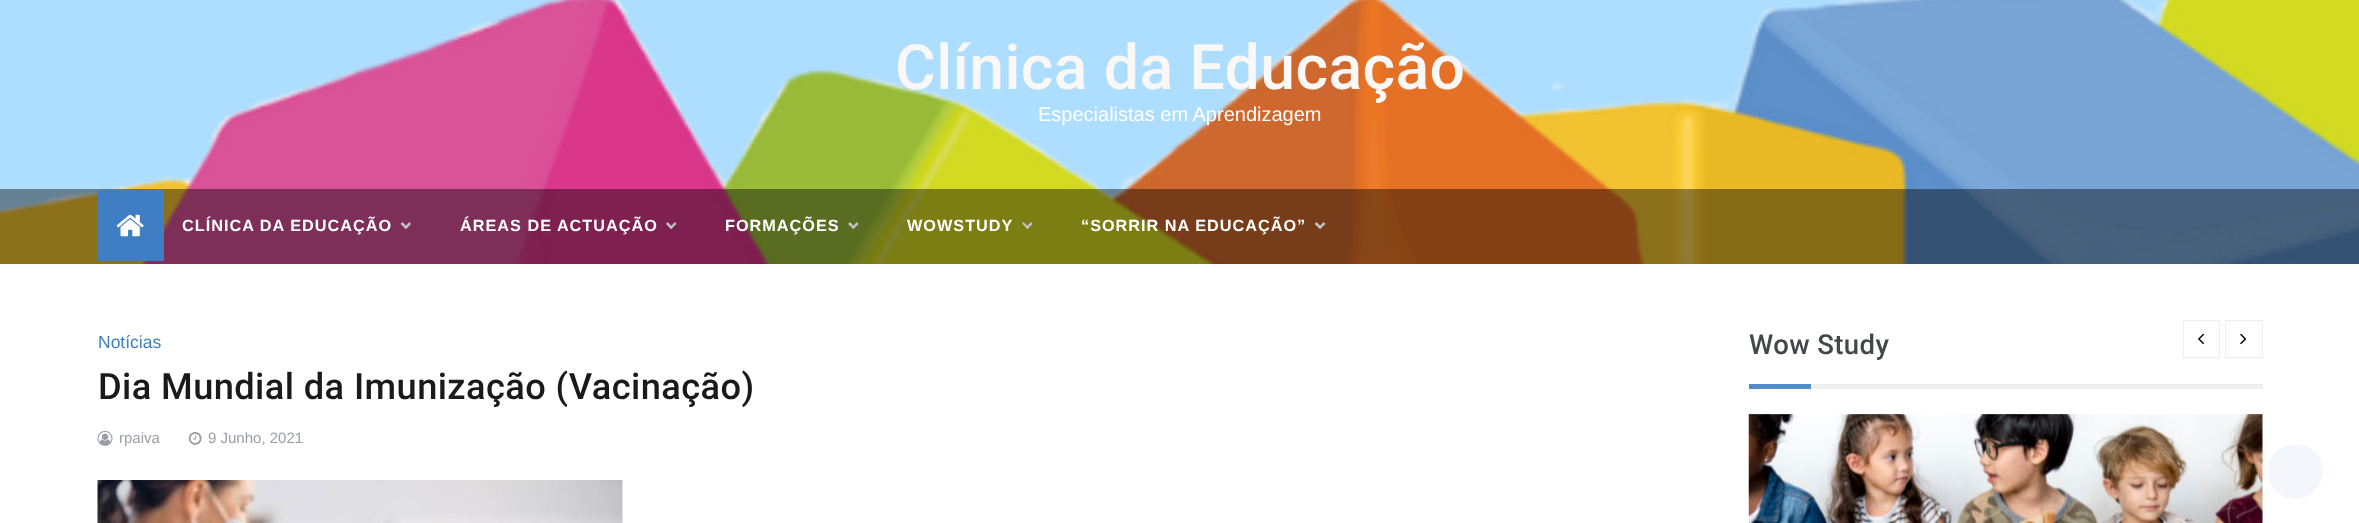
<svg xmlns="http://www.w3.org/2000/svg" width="2359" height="523">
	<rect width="100%" height="100%" fill="#FFFFFF" />
	<image x="0" y="0" width="2359" height="264" href="assets/img1.png" />
	<rect x="0" y="264" width="2359" height="1" fill="#FAFAFA" />
	<text x="895" y="89" font-family="Roboto" font-size="62.5" font-weight="500" letter-spacing="0.4" fill="#F9F8F7">Clínica da Educação</text>
	<text x="1038" y="121" font-family="Liberation Sans" font-size="20" fill="#FFFFFF">Especialistas em Aprendizagem</text>
	<rect x="0" y="189" width="2359" height="75" fill="#000000" fill-opacity="0.42" />
	<rect x="98" y="190" width="66" height="71" fill="#407EC4" />
	<image x="116" y="214" width="28" height="23" href="assets/img2.png" />
	<text x="182" y="231" font-family="Liberation Sans" font-size="16.25" font-weight="700" letter-spacing="1" fill="#FFFFFF">CLÍNICA DA EDUCAÇÃO</text>
	<path d="M411 224L406 229L404 227.5L409.5 222Z" fill="#C1C1C1" />
	<path d="M407.5 227.5L406 229L400.5 224L402.5 222Z" fill="#C1C1C1" />
	<text x="460" y="231" font-family="Liberation Sans" font-size="16.25" font-weight="700" letter-spacing="1" fill="#FFFFFF">ÁREAS DE ACTUAÇÃO</text>
	<path d="M676.5 224L671 229L669.5 227.5L675 222Z" fill="#C1C1C1" />
	<path d="M673 227.5L671 229L666 224L667.5 222Z" fill="#C1C1C1" />
	<text x="725" y="231" font-family="Liberation Sans" font-size="16.25" font-weight="700" letter-spacing="1" fill="#FFFFFF">FORMAÇÕES</text>
	<path d="M858.5 224L853.5 229L851.5 227.5L857 222Z" fill="#C1C1C1" />
	<path d="M855 227.5L853.5 229L848 224L850 222Z" fill="#C1C1C1" />
	<text x="907" y="231" font-family="Liberation Sans" font-size="16.25" font-weight="700" letter-spacing="1" fill="#FFFFFF">WOWSTUDY</text>
	<path d="M1032.5 224L1027.5 229L1025.5 227.5L1031 222Z" fill="#C1C1C1" />
	<path d="M1029 227.5L1027.5 229L1022 223.5L1023.5 222Z" fill="#C1C1C1" />
	<text x="1081" y="231" font-family="Liberation Sans" font-size="16.25" font-weight="700" letter-spacing="1" fill="#FFFFFF">“SORRIR NA EDUCAÇÃO”</text>
	<path d="M1325.5 224L1320 229L1318.5 227.5L1323.5 222Z" fill="#C1C1C1" />
	<path d="M1322 227.5L1320 229L1314.5 224L1316.5 222Z" fill="#C1C1C1" />
	<text x="98" y="348" font-family="Liberation Sans" font-size="17.5" fill="#407EC4">Notícias</text>
	<text x="98" y="399" font-family="Roboto" font-size="36.25" font-weight="500" letter-spacing="0.4" fill="#1A1A1A">Dia Mundial da Imunização (Vacinação)</text>
	<image x="97" y="430" width="16" height="16" href="assets/img3.png" />
	<text x="119" y="443" font-family="Liberation Sans" font-size="15" fill="#989EA6">rpaiva</text>
	<image x="188" y="432" width="14" height="13" href="assets/img4.png" />
	<text x="208" y="443" font-family="Liberation Sans" font-size="15" fill="#989EA6">9 Junho, 2021</text>
	<image x="97" y="480" width="526" height="43" href="assets/img5.png" />
	<rect x="2183.5" y="320.5" width="36" height="37" fill="none" stroke="#EEEEEE" />
	<image x="2198" y="333" width="6" height="12" href="assets/img6.png" />
	<rect x="2225.5" y="320.5" width="37" height="37" fill="none" stroke="#EEEEEE" />
	<image x="2240" y="333" width="7" height="12" href="assets/img7.png" />
	<image x="1748" y="414" width="515" height="109" href="assets/img8.png" />
	<text x="1749" y="354" font-family="Roboto" font-size="27.5" font-weight="500" letter-spacing="0.4" fill="#444749">Wow Study</text>
	<rect x="1749" y="384" width="62" height="5" fill="#538BCA" />
	<rect x="1811" y="384" width="452" height="5" fill="#F0F0F0" />
	<circle cx="2295.5" cy="471.5" r="27.5" fill="#F3F7FB" />
</svg>
